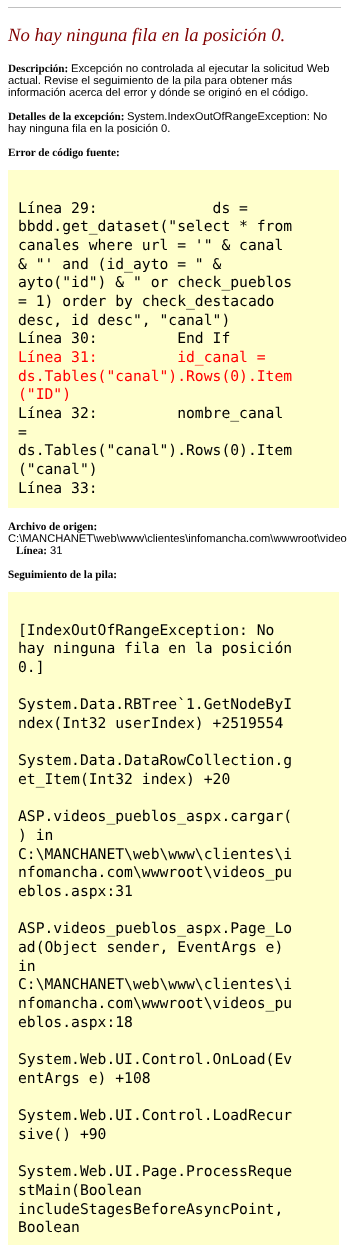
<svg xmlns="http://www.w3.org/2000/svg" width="347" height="1245">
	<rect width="100%" height="100%" fill="#FFFFFF" />
	<rect x="8" y="7" width="333" height="1" fill="#C0C0C0" />
	<text x="8" y="41" font-family="Liberation Serif" font-size="18.7" font-style="italic" fill="#800000">No hay ninguna fila en la posición 0.</text>
	<text x="8" y="72" font-family="Liberation Serif" font-size="11.2" font-weight="700" fill="#000000">Descripción:</text>
	<g font-family="Liberation Sans" font-size="11.2" fill="#000000">
		<text x="71" y="72">Excepción no controlada al ejecutar la solicitud Web</text>
		<text x="8" y="84">actual. Revise el seguimiento de la pila para obtener más</text>
		<text x="8" y="96">información acerca del error y dónde se originó en el código.</text>
	</g>
	<text x="8" y="120" font-family="Liberation Serif" font-size="11.2" font-weight="700" fill="#000000">Detalles de la excepción:</text>
	<g font-family="Liberation Sans" font-size="11.2" fill="#000000">
		<text x="127" y="120">System.IndexOutOfRangeException: No</text>
		<text x="8" y="132">hay ninguna fila en la posición 0.</text>
	</g>
	<text x="8" y="156" font-family="Liberation Serif" font-size="11.2" font-weight="700" fill="#000000">Error de código fuente:</text>
	<rect x="8" y="170" width="331" height="338" fill="#FFFFCC" />
	<g font-family="DejaVu Sans Mono" font-size="14.7" fill="#000000">
		<text x="18" y="213" xml:space="preserve">Línea 29:             ds =</text>
		<text x="18" y="231">bbdd.get_dataset("select * from</text>
		<text x="18" y="250">canales where url = '" &amp; canal</text>
		<text x="18" y="269">&amp; "' and (id_ayto = " &amp;</text>
		<text x="18" y="287">ayto("id") &amp; " or check_pueblos</text>
		<text x="18" y="306">= 1) order by check_destacado</text>
		<text x="18" y="325">desc, id desc", "canal")</text>
		<text x="18" y="343" xml:space="preserve">Línea 30:         End If</text>
	</g>
	<g font-family="DejaVu Sans Mono" font-size="14.7" fill="#FF0000">
		<text x="18" y="362" xml:space="preserve">Línea 31:         id_canal =</text>
		<text x="18" y="381">ds.Tables("canal").Rows(0).Item</text>
		<text x="18" y="399">("ID")</text>
	</g>
	<g font-family="DejaVu Sans Mono" font-size="14.7" fill="#000000">
		<text x="18" y="418" xml:space="preserve">Línea 32:         nombre_canal</text>
		<text x="18" y="437">=</text>
		<text x="18" y="455">ds.Tables("canal").Rows(0).Item</text>
		<text x="18" y="474">("canal")</text>
		<text x="18" y="493">Línea 33:</text>
	</g>
	<text x="8" y="530" font-family="Liberation Serif" font-size="11.2" font-weight="700" fill="#000000">Archivo de origen:</text>
	<text x="8" y="542" font-family="Liberation Sans" font-size="11.2" fill="#000000">C:\MANCHANET\web\www\clientes\infomancha.com\wwwroot\video</text>
	<text x="16" y="554" font-family="Liberation Serif" font-size="11.2" font-weight="700" fill="#000000">Línea:</text>
	<text x="50" y="554" font-family="Liberation Sans" font-size="11.2" fill="#000000">31</text>
	<text x="8" y="578" font-family="Liberation Serif" font-size="11.2" font-weight="700" fill="#000000">Seguimiento de la pila:</text>
	<rect x="8" y="592" width="331" height="653" fill="#FFFFCC" />
	<g font-family="DejaVu Sans Mono" font-size="14.7" fill="#000000">
		<text x="18" y="635">[IndexOutOfRangeException: No</text>
		<text x="18" y="653">hay ninguna fila en la posición</text>
		<text x="18" y="672">0.]</text>
		<text x="18" y="709">System.Data.RBTree`1.GetNodeByI</text>
		<text x="18" y="728">ndex(Int32 userIndex) +2519554</text>
		<text x="18" y="765">System.Data.DataRowCollection.g</text>
		<text x="18" y="784">et_Item(Int32 index) +20</text>
		<text x="18" y="821">ASP.videos_pueblos_aspx.cargar(</text>
		<text x="18" y="840">) in</text>
		<text x="18" y="859">C:\MANCHANET\web\www\clientes\i</text>
		<text x="18" y="877">nfomancha.com\wwwroot\videos_pu</text>
		<text x="18" y="896">eblos.aspx:31</text>
		<text x="18" y="933">ASP.videos_pueblos_aspx.Page_Lo</text>
		<text x="18" y="952">ad(Object sender, EventArgs e)</text>
		<text x="18" y="971">in</text>
		<text x="18" y="989">C:\MANCHANET\web\www\clientes\i</text>
		<text x="18" y="1008">nfomancha.com\wwwroot\videos_pu</text>
		<text x="18" y="1027">eblos.aspx:18</text>
		<text x="18" y="1064">System.Web.UI.Control.OnLoad(Ev</text>
		<text x="18" y="1083">entArgs e) +108</text>
		<text x="18" y="1120">System.Web.UI.Control.LoadRecur</text>
		<text x="18" y="1139">sive() +90</text>
		<text x="18" y="1176">System.Web.UI.Page.ProcessReque</text>
		<text x="18" y="1195">stMain(Boolean</text>
		<text x="18" y="1214">includeStagesBeforeAsyncPoint,</text>
		<text x="18" y="1232">Boolean</text>
	</g>
</svg>
